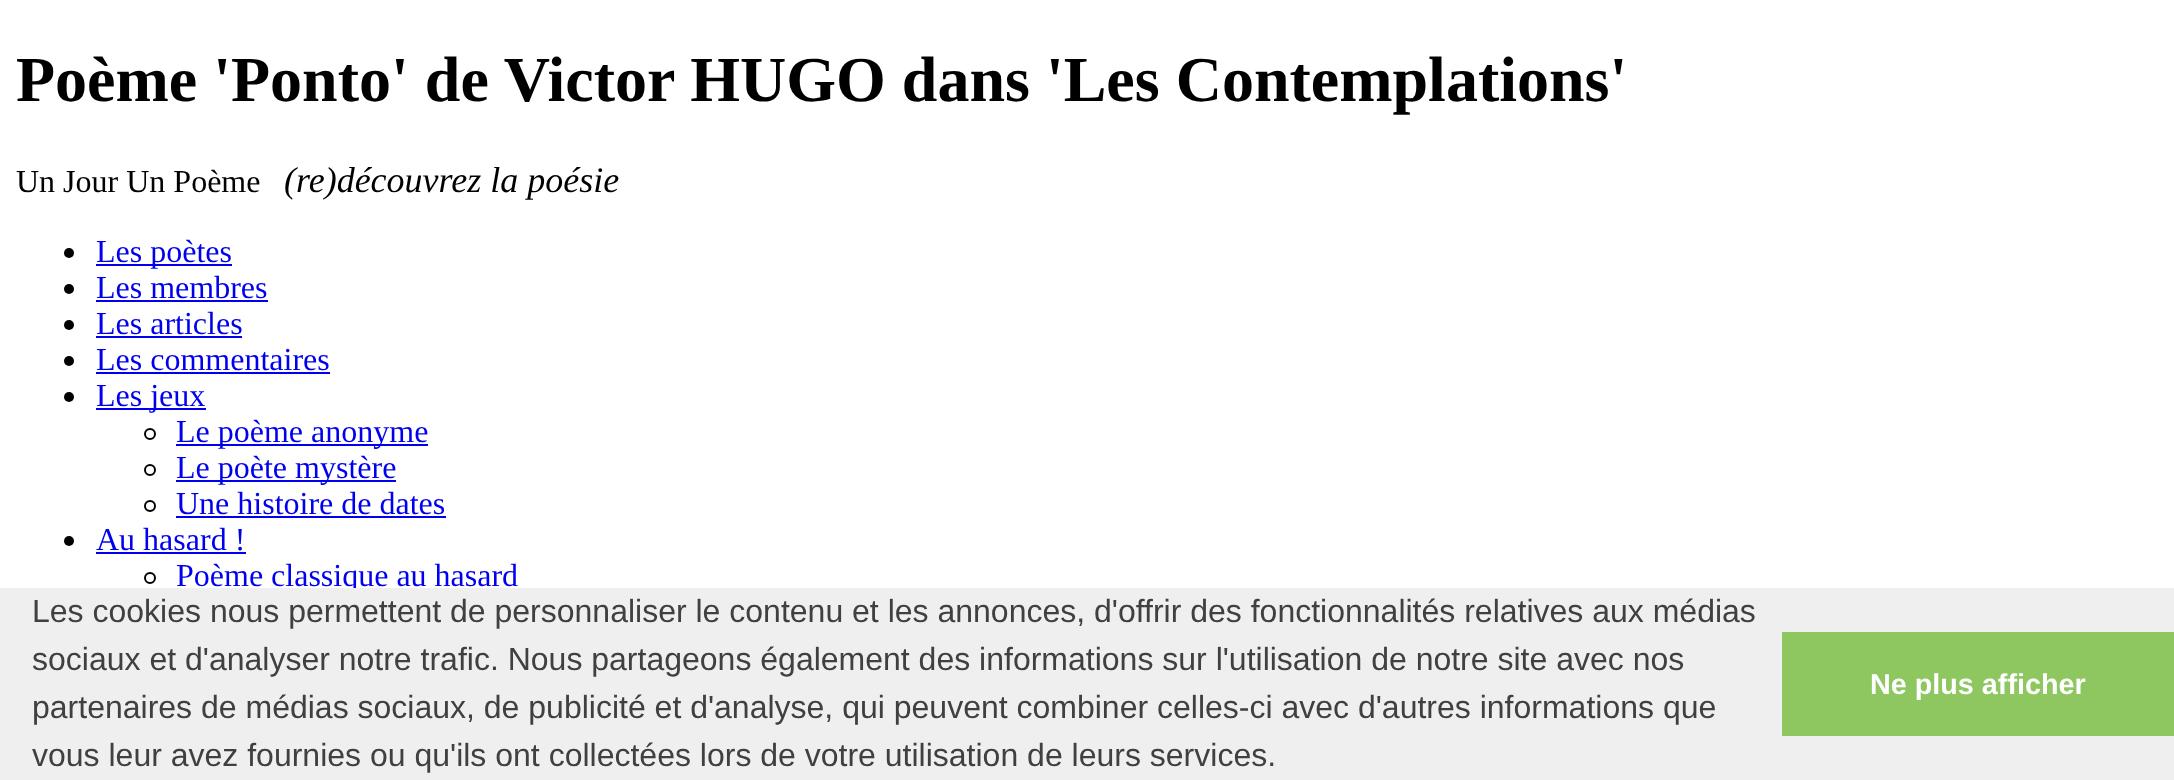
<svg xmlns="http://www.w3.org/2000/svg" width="2174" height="780">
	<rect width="100%" height="100%" fill="#FFFFFF" />
	<text x="16" y="101" font-family="Liberation Serif" font-size="64" font-weight="700" fill="#000000">Poème 'Ponto' de Victor HUGO dans 'Les Contemplations'</text>
	<text x="16" y="192" font-family="Liberation Serif" font-size="32" fill="#000000">Un Jour Un Poème</text>
	<text x="284" y="192" font-family="Liberation Serif" font-size="36" font-style="italic" fill="#000000">(re)découvrez la poésie</text>
	<circle cx="69" cy="253" r="5" fill="#000000" />
	<rect x="96" y="264" width="136" height="2" fill="#0000EE" />
	<text x="96" y="262" font-family="Liberation Serif" font-size="32" fill="#0000EE">Les poètes</text>
	<circle cx="69" cy="289" r="5" fill="#000000" />
	<text x="96" y="298" font-family="Liberation Serif" font-size="32" fill="#0000EE">Les membres</text>
	<rect x="96" y="300" width="172" height="2" fill="#0000EE" />
	<circle cx="69" cy="325" r="5" fill="#000000" />
	<text x="96" y="334" font-family="Liberation Serif" font-size="32" fill="#0000EE">Les articles</text>
	<rect x="96" y="336" width="146" height="2" fill="#0000EE" />
	<circle cx="69" cy="361" r="5" fill="#000000" />
	<text x="96" y="370" font-family="Liberation Serif" font-size="32" fill="#0000EE">Les commentaires</text>
	<rect x="96" y="372" width="234" height="2" fill="#0000EE" />
	<circle cx="69" cy="397" r="5" fill="#000000" />
	<rect x="96" y="408" width="110" height="2" fill="#0000EE" />
	<text x="96" y="406" font-family="Liberation Serif" font-size="32" fill="#0000EE">Les jeux</text>
	<circle cx="150" cy="434" r="5" fill="none" stroke="#000000" stroke-width="2" />
	<rect x="176" y="444" width="252" height="2" fill="#0000EE" />
	<text x="176" y="442" font-family="Liberation Serif" font-size="32" fill="#0000EE">Le poème anonyme</text>
	<circle cx="150" cy="470" r="5" fill="none" stroke="#000000" stroke-width="2" />
	<rect x="176" y="480" width="220" height="2" fill="#0000EE" />
	<text x="176" y="478" font-family="Liberation Serif" font-size="32" fill="#0000EE">Le poète mystère</text>
	<circle cx="150" cy="506" r="5" fill="none" stroke="#000000" stroke-width="2" />
	<text x="176" y="514" font-family="Liberation Serif" font-size="32" fill="#0000EE">Une histoire de dates</text>
	<rect x="176" y="516" width="270" height="2" fill="#0000EE" />
	<circle cx="69" cy="541" r="5" fill="#000000" />
	<text x="96" y="550" font-family="Liberation Serif" font-size="32" fill="#0000EE">Au hasard !</text>
	<rect x="96" y="552" width="150" height="2" fill="#0000EE" />
	<circle cx="150" cy="578" r="5" fill="none" stroke="#000000" stroke-width="2" />
	<text x="176" y="586" font-family="Liberation Serif" font-size="32" fill="#0000EE">Poème classique au hasard</text>
	<rect x="0" y="588" width="2174" height="192" fill="#EFEFEF" />
	<g font-family="Liberation Sans" font-size="32" fill="#404040">
		<text x="32" y="622">Les cookies nous permettent de personnaliser le contenu et les annonces, d'offrir des fonctionnalités relatives aux médias</text>
		<text x="32" y="670">sociaux et d'analyser notre trafic. Nous partageons également des informations sur l'utilisation de notre site avec nos</text>
		<text x="32" y="718">partenaires de médias sociaux, de publicité et d'analyse, qui peuvent combiner celles-ci avec d'autres informations que</text>
		<text x="32" y="766">vous leur avez fournies ou qu'ils ont collectées lors de votre utilisation de leurs services.</text>
	</g>
	<rect x="1782" y="632" width="392" height="104" fill="#8EC760" />
	<text x="1870" y="694" font-family="Liberation Sans" font-size="28.75" font-weight="700" fill="#FFFFFF">Ne plus afficher</text>
</svg>
